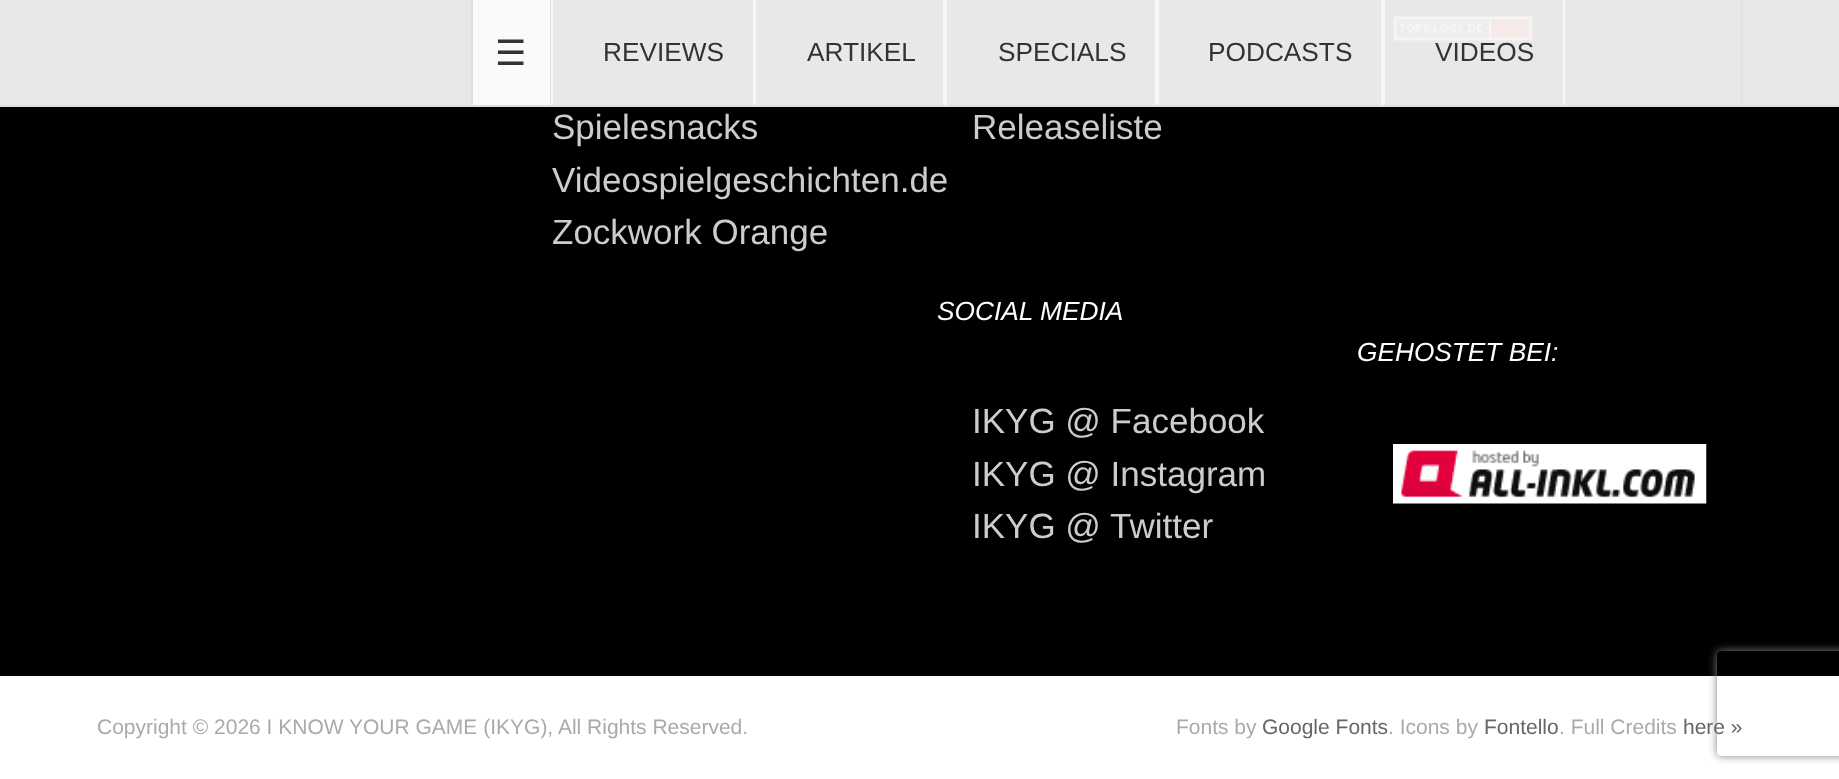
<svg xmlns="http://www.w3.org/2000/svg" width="1839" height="779">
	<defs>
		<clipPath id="clip1"><path d="M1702 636H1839V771H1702ZM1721 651H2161C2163 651 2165 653 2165 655V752C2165 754 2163 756 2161 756H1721C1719 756 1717 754 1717 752V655C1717 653 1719 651 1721 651Z" clip-rule="evenodd" /></clipPath>
	</defs>
	<rect width="100%" height="100%" fill="#000000" />
	<rect x="0" y="105" width="1839" height="2" fill="#DFDFDF" />
	<rect x="0" y="0" width="1839" height="105" fill="#E8E8E8" />
	<rect x="550" y="0" width="1" height="105" fill="#DFDFDF" />
	<rect x="471" y="0" width="2" height="105" fill="#DFDFDF" />
	<rect x="473" y="0" width="77" height="105" fill="#FAFAFA" />
	<text x="495" y="65" font-family="DejaVu Sans" font-size="35" fill="#333333">☰</text>
	<rect x="753" y="0" width="2" height="105" fill="#F7F7F7" fill-opacity="0.94" />
	<text x="603" y="61" font-family="Liberation Sans" font-size="26.25" fill="#333333">REVIEWS</text>
	<rect x="943" y="0" width="4" height="105" fill="#F6F6F6" />
	<rect x="755" y="0" width="1" height="105" fill="#F7F7F7" fill-opacity="0.94" />
	<text x="807" y="61" font-family="Liberation Sans" font-size="26.25" fill="#333333">ARTIKEL</text>
	<rect x="1155" y="0" width="2" height="105" fill="#F7F7F7" fill-opacity="0.94" />
	<text x="998" y="61" font-family="Liberation Sans" font-size="26.25" fill="#333333">SPECIALS</text>
	<rect x="1381" y="0" width="4" height="105" fill="#F6F6F6" />
	<rect x="1157" y="0" width="2" height="105" fill="#F7F7F7" fill-opacity="0.94" />
	<text x="1208" y="61" font-family="Liberation Sans" font-size="26.25" fill="#333333">PODCASTS</text>
	<rect x="1563" y="0" width="2" height="105" fill="#F6F6F6" />
	<text x="1435" y="61" font-family="Liberation Sans" font-size="26.25" fill="#333333">VIDEOS</text>
	<rect x="1741" y="0" width="2" height="105" fill="#E3E3E3" />
	<rect x="551" y="0" width="2" height="105" fill="#F6F6F6" />
	<g font-family="Liberation Sans" font-size="35" fill="#CCCCCC">
		<text x="552" y="139">Spielesnacks</text>
		<text x="552" y="192">Videospielgeschichten.de</text>
		<text x="552" y="244">Zockwork Orange</text>
		<text x="972" y="139">Releaseliste</text>
	</g>
	<text x="937" y="320" font-family="Liberation Sans" font-size="26.25" font-style="italic" fill="#FFFFFF">SOCIAL MEDIA</text>
	<g font-family="Liberation Sans" font-size="35" fill="#CCCCCC">
		<text x="972" y="433">IKYG @ Facebook</text>
		<text x="972" y="486">IKYG @ Instagram</text>
		<text x="972" y="538">IKYG @ Twitter</text>
	</g>
	<image x="1393" y="15" width="140" height="27" href="assets/img1.png" />
	<text x="1357" y="361" font-family="Liberation Sans" font-size="26.25" font-style="italic" fill="#FFFFFF">GEHOSTET BEI:</text>
	<image x="1393" y="444" width="314" height="60" href="assets/img2.png" />
	<rect x="0" y="676" width="1839" height="103" fill="#FFFFFF" />
	<g font-family="Liberation Sans" font-size="21" fill="#AAAAAA">
		<text x="97" y="734">Copyright © 2026 I KNOW YOUR GAME (IKYG), All Rights Reserved.</text>
		<text x="1176" y="734">Fonts by</text>
	</g>
	<text x="1262" y="734" font-family="Liberation Sans" font-size="21" fill="#666666">Google Fonts</text>
	<text x="1388" y="734" font-family="Liberation Sans" font-size="21" fill="#AAAAAA">. Icons by</text>
	<text x="1484" y="734" font-family="Liberation Sans" font-size="21" fill="#666666">Fontello</text>
	<text x="1559" y="734" font-family="Liberation Sans" font-size="21" fill="#AAAAAA">. Full Credits</text>
	<text x="1683" y="734" font-family="Liberation Sans" font-size="21" fill="#666666">here »</text>
	<g clip-path="url(#clip1)">
		<rect x="1717" y="651" width="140" height="105" rx="4" fill="#808080" filter="blur(4.5px)" />
	</g>
</svg>
